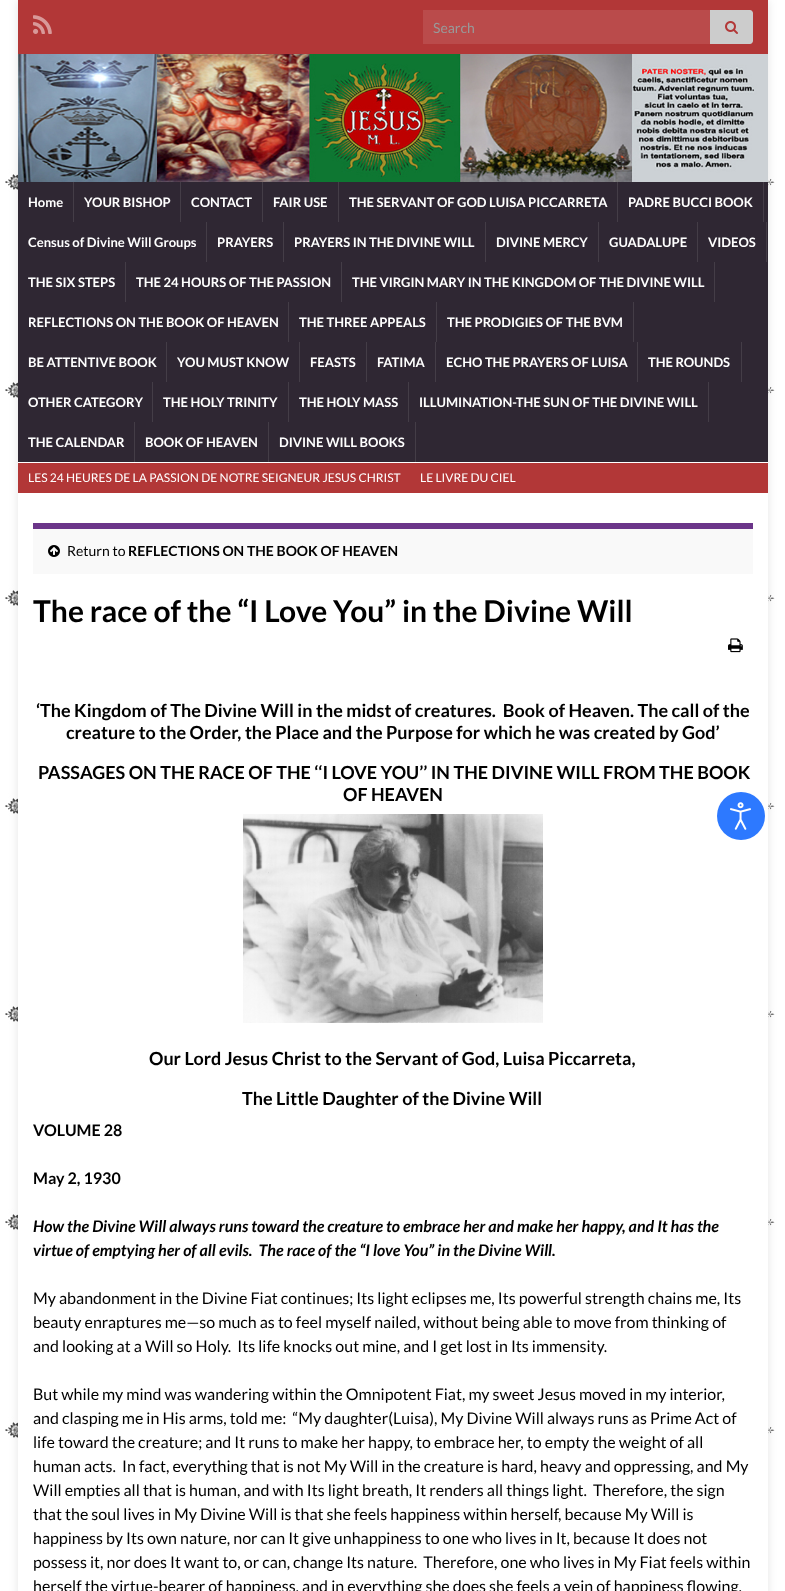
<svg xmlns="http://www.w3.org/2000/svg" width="785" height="1591">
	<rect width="100%" height="100%" fill="#FFFFFF" />
	<image x="5" y="9" width="770" height="1582" href="assets/img1.png" />
	<rect x="18" y="0" width="750" height="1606" fill="#000000" fill-opacity="0.1" filter="blur(5px)" />
	<rect x="18" y="0" width="750" height="54" fill="#B23737" />
	<image x="33" y="15" width="19" height="19" href="assets/img2.png" />
	<rect x="423" y="10" width="287" height="34" fill="#BA4B4B" />
	<text x="433" y="33" font-family="Lato" font-size="14" fill="#999999">Search</text>
	<path d="M710 10H750C751.5 10 753 11.5 753 13V41C753 42.5 751.5 44 750 44H710Z" fill="#CCCCCC" />
	<image x="725" y="21" width="13" height="13" href="assets/img3.png" />
	<image x="18" y="54" width="750" height="128" href="assets/img4.png" />
	<rect x="18" y="182" width="750" height="280" fill="#2F2733" />
	<rect x="73" y="182" width="1" height="40" fill="#443D47" />
	<text x="28" y="207" font-family="Lato" font-size="13" font-weight="700" fill="#FFFFFF">Home</text>
	<rect x="180" y="182" width="1" height="40" fill="#443D47" />
	<text x="84" y="207" font-family="Lato" font-size="13" font-weight="700" fill="#FFFFFF">YOUR BISHOP</text>
	<rect x="262" y="182" width="1" height="40" fill="#443D47" />
	<text x="191" y="207" font-family="Lato" font-size="13" font-weight="700" fill="#FFFFFF">CONTACT</text>
	<rect x="338" y="182" width="1" height="40" fill="#443D47" />
	<text x="273" y="207" font-family="Lato" font-size="13" font-weight="700" fill="#FFFFFF">FAIR USE</text>
	<rect x="617" y="182" width="1" height="40" fill="#443D47" />
	<text x="349" y="207" font-family="Lato" font-size="13" font-weight="700" fill="#FFFFFF">THE SERVANT OF GOD LUISA PICCARRETA</text>
	<rect x="763" y="182" width="1" height="40" fill="#443D47" />
	<text x="628" y="207" font-family="Lato" font-size="13" font-weight="700" fill="#FFFFFF">PADRE BUCCI BOOK</text>
	<rect x="206" y="222" width="1" height="40" fill="#443D47" />
	<text x="28" y="247" font-family="Lato" font-size="13" font-weight="700" fill="#FFFFFF">Census of Divine Will Groups</text>
	<rect x="283" y="222" width="1" height="40" fill="#443D47" />
	<text x="217" y="247" font-family="Lato" font-size="13" font-weight="700" fill="#FFFFFF">PRAYERS</text>
	<rect x="485" y="222" width="1" height="40" fill="#443D47" />
	<text x="294" y="247" font-family="Lato" font-size="13" font-weight="700" fill="#FFFFFF">PRAYERS IN THE DIVINE WILL</text>
	<rect x="598" y="222" width="1" height="40" fill="#443D47" />
	<text x="496" y="247" font-family="Lato" font-size="13" font-weight="700" fill="#FFFFFF">DIVINE MERCY</text>
	<rect x="697" y="222" width="1" height="40" fill="#443D47" />
	<text x="609" y="247" font-family="Lato" font-size="13" font-weight="700" fill="#FFFFFF">GUADALUPE</text>
	<rect x="766" y="222" width="1" height="40" fill="#443D47" />
	<text x="708" y="247" font-family="Lato" font-size="13" font-weight="700" fill="#FFFFFF">VIDEOS</text>
	<rect x="125" y="262" width="1" height="40" fill="#443D47" />
	<text x="28" y="287" font-family="Lato" font-size="13" font-weight="700" fill="#FFFFFF">THE SIX STEPS</text>
	<rect x="341" y="262" width="1" height="40" fill="#443D47" />
	<text x="136" y="287" font-family="Lato" font-size="13" font-weight="700" fill="#FFFFFF">THE 24 HOURS OF THE PASSION</text>
	<rect x="714" y="262" width="1" height="40" fill="#443D47" />
	<text x="352" y="287" font-family="Lato" font-size="13" font-weight="700" fill="#FFFFFF">THE VIRGIN MARY IN THE KINGDOM OF THE DIVINE WILL</text>
	<rect x="288" y="302" width="1" height="40" fill="#443D47" />
	<text x="28" y="327" font-family="Lato" font-size="13" font-weight="700" fill="#FFFFFF">REFLECTIONS ON THE BOOK OF HEAVEN</text>
	<rect x="436" y="302" width="1" height="40" fill="#443D47" />
	<text x="299" y="327" font-family="Lato" font-size="13" font-weight="700" fill="#FFFFFF">THE THREE APPEALS</text>
	<rect x="633" y="302" width="1" height="40" fill="#443D47" />
	<text x="447" y="327" font-family="Lato" font-size="13" font-weight="700" fill="#FFFFFF">THE PRODIGIES OF THE BVM</text>
	<rect x="166" y="342" width="1" height="40" fill="#443D47" />
	<text x="28" y="367" font-family="Lato" font-size="13" font-weight="700" fill="#FFFFFF">BE ATTENTIVE BOOK</text>
	<rect x="299" y="342" width="1" height="40" fill="#443D47" />
	<text x="177" y="367" font-family="Lato" font-size="13" font-weight="700" fill="#FFFFFF">YOU MUST KNOW</text>
	<rect x="366" y="342" width="1" height="40" fill="#443D47" />
	<text x="310" y="367" font-family="Lato" font-size="13" font-weight="700" fill="#FFFFFF">FEASTS</text>
	<rect x="435" y="342" width="1" height="40" fill="#443D47" />
	<text x="377" y="367" font-family="Lato" font-size="13" font-weight="700" fill="#FFFFFF">FATIMA</text>
	<rect x="637" y="342" width="1" height="40" fill="#443D47" />
	<text x="446" y="367" font-family="Lato" font-size="13" font-weight="700" fill="#FFFFFF">ECHO THE PRAYERS OF LUISA</text>
	<rect x="741" y="342" width="1" height="40" fill="#443D47" />
	<text x="648" y="367" font-family="Lato" font-size="13" font-weight="700" fill="#FFFFFF">THE ROUNDS</text>
	<rect x="152" y="382" width="1" height="40" fill="#443D47" />
	<text x="28" y="407" font-family="Lato" font-size="13" font-weight="700" fill="#FFFFFF">OTHER CATEGORY</text>
	<rect x="288" y="382" width="1" height="40" fill="#443D47" />
	<text x="163" y="407" font-family="Lato" font-size="13" font-weight="700" fill="#FFFFFF">THE HOLY TRINITY</text>
	<rect x="408" y="382" width="1" height="40" fill="#443D47" />
	<text x="299" y="407" font-family="Lato" font-size="13" font-weight="700" fill="#FFFFFF">THE HOLY MASS</text>
	<rect x="708" y="382" width="1" height="40" fill="#443D47" />
	<text x="419" y="407" font-family="Lato" font-size="13" font-weight="700" fill="#FFFFFF">ILLUMINATION-THE SUN OF THE DIVINE WILL</text>
	<rect x="134" y="422" width="1" height="40" fill="#443D47" />
	<text x="28" y="447" font-family="Lato" font-size="13" font-weight="700" fill="#FFFFFF">THE CALENDAR</text>
	<rect x="268" y="422" width="1" height="40" fill="#443D47" />
	<text x="145" y="447" font-family="Lato" font-size="13" font-weight="700" fill="#FFFFFF">BOOK OF HEAVEN</text>
	<rect x="415" y="422" width="1" height="40" fill="#443D47" />
	<text x="279" y="447" font-family="Lato" font-size="13" font-weight="700" fill="#FFFFFF">DIVINE WILL BOOKS</text>
	<rect x="18" y="463" width="750" height="30" fill="#B23737" />
	<rect x="18" y="462" width="750" height="1" fill="#FFFFFF" />
	<g font-family="Lato" font-size="12" fill="#FFFFFF">
		<text x="28" y="482">LES 24 HEURES DE LA PASSION DE NOTRE SEIGNEUR JESUS CHRIST</text>
		<text x="420" y="482">LE LIVRE DU CIEL</text>
	</g>
	<rect x="18" y="493" width="750" height="1098" fill="#FFFFFF" />
	<rect x="33" y="529" width="720" height="45" fill="#F9F9F9" />
	<rect x="33" y="523" width="720" height="6" fill="#6B3589" />
	<image x="48" y="545" width="12" height="12" href="assets/img5.png" />
	<text x="67" y="556" font-family="Lato" font-size="14" fill="#000000">Return to</text>
	<text x="128" y="556" font-family="Lato" font-size="14" font-weight="700" fill="#000000">REFLECTIONS ON THE BOOK OF HEAVEN</text>
	<text x="33" y="622" font-family="Lato" font-size="30" font-weight="700" fill="#000000">The race of the “I Love You” in the Divine Will</text>
	<image x="728" y="638" width="15" height="15" href="assets/img6.png" />
	<g font-family="Lato" font-size="18" font-weight="700" fill="#000000">
		<text x="36" y="717" xml:space="preserve">‘The Kingdom of The Divine Will in the midst of creatures.  Book of Heaven. The call of the</text>
		<text x="66" y="739">creature to the Order, the Place and the Purpose for which he was created by God’</text>
		<text x="38" y="779">PASSAGES ON THE RACE OF THE ‘‘I LOVE YOU’’ IN THE DIVINE WILL FROM THE BOOK</text>
		<text x="343" y="801">OF HEAVEN</text>
	</g>
	<image x="243" y="814" width="300" height="209" href="assets/img7.png" />
	<g font-family="Lato" font-size="18" font-weight="700" fill="#000000">
		<text x="149" y="1065">Our Lord Jesus Christ to the Servant of God, Luisa Piccarreta,</text>
		<text x="242" y="1105">The Little Daughter of the Divine Will</text>
	</g>
	<g font-family="Lato" font-size="16" font-weight="700" fill="#000000">
		<text x="33" y="1136">VOLUME 28</text>
		<text x="33" y="1184">May 2, 1930</text>
	</g>
	<g font-family="Lato" font-size="16" font-weight="700" font-style="italic" fill="#000000">
		<text x="33" y="1232">How the Divine Will always runs toward the creature to embrace her and make her happy, and It has the</text>
		<text x="33" y="1256" xml:space="preserve">virtue of emptying her of all evils.  The race of the “I love You” in the Divine Will.</text>
	</g>
	<g font-family="Lato" font-size="16" fill="#000000">
		<text x="33" y="1304">My abandonment in the Divine Fiat continues; Its light eclipses me, Its powerful strength chains me, Its</text>
		<text x="33" y="1328">beauty enraptures me—so much as to feel myself nailed, without being able to move from thinking of</text>
		<text x="33" y="1352" xml:space="preserve">and looking at a Will so Holy.  Its life knocks out mine, and I get lost in Its immensity.</text>
		<text x="33" y="1400">But while my mind was wandering within the Omnipotent Fiat, my sweet Jesus moved in my interior,</text>
		<text x="33" y="1424" xml:space="preserve">and clasping me in His arms, told me:  “My daughter(Luisa), My Divine Will always runs as Prime Act of</text>
		<text x="33" y="1448">life toward the creature; and It runs to make her happy, to embrace her, to empty the weight of all</text>
		<text x="33" y="1472" xml:space="preserve">human acts.  In fact, everything that is not My Will in the creature is hard, heavy and oppressing, and My</text>
		<text x="33" y="1496" xml:space="preserve">Will empties all that is human, and with Its light breath, It renders all things light.  Therefore, the sign</text>
		<text x="33" y="1520">that the soul lives in My Divine Will is that she feels happiness within herself, because My Will is</text>
		<text x="33" y="1544">happiness by Its own nature, nor can It give unhappiness to one who lives in It, because It does not</text>
		<text x="33" y="1568" xml:space="preserve">possess it, nor does It want to, or can, change Its nature.  Therefore, one who lives in My Fiat feels within</text>
		<text x="33" y="1592">herself the virtue-bearer of happiness, and in everything she does she feels a vein of happiness flowing,</text>
	</g>
	<circle cx="741" cy="816" r="24" fill="#2D79FF" />
	<image x="730" y="802" width="21" height="28" href="assets/img8.png" />
</svg>
